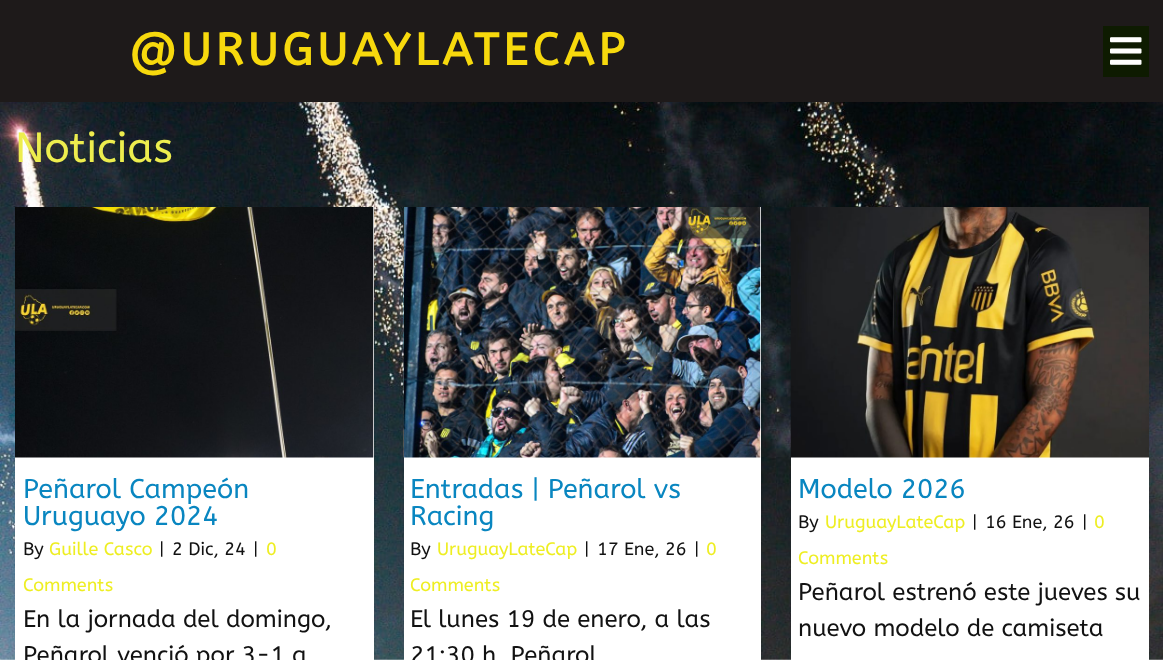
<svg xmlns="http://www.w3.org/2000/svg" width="1163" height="660">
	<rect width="100%" height="100%" fill="#FFFFFF" />
	<image x="0" y="102" width="1163" height="558" href="assets/img1.png" />
	<rect x="0" y="0" width="1163" height="102" fill="#1E1A1A" />
	<text x="129" y="65" font-family="ABeeZee" font-size="45" font-weight="700" letter-spacing="4.5" fill="#F7D90D">@URUGUAYLATECAP</text>
	<rect x="1103" y="26" width="46" height="51" fill="#0E1B01" />
	<image x="1110" y="37" width="32" height="28" href="assets/img2.png" />
	<text x="15" y="162" font-family="ABeeZee" font-size="42" fill="#EDED4E">Noticias</text>
	<rect x="15" y="207" width="359" height="453" fill="#FFFFFF" />
	<image x="15" y="207" width="359" height="251" href="assets/img3.png" />
	<g font-family="ABeeZee" font-size="27" fill="#0986C0">
		<text x="23" y="498">Peñarol Campeón</text>
		<text x="23" y="525">Uruguayo 2024</text>
	</g>
	<text x="23" y="555" font-family="ABeeZee" font-size="18" fill="#121212">By</text>
	<text x="49" y="555" font-family="ABeeZee" font-size="18" fill="#EEEE22">Guille Casco</text>
	<g font-family="ABeeZee" font-size="18" fill="#121212">
		<text x="159" y="555">|</text>
		<text x="172" y="555">2 Dic, 24</text>
		<text x="253" y="555">|</text>
	</g>
	<g font-family="ABeeZee" font-size="18" fill="#EEEE22">
		<text x="266" y="555">0</text>
		<text x="23" y="591">Comments</text>
	</g>
	<g font-family="ABeeZee" font-size="24" fill="#121212">
		<text x="23" y="627">En la jornada del domingo,</text>
		<text x="23" y="663">Peñarol venció por 3-1 a</text>
	</g>
	<rect x="404" y="207" width="357" height="453" fill="#FFFFFF" />
	<image x="403" y="207" width="358" height="251" href="assets/img4.png" />
	<g font-family="ABeeZee" font-size="27" fill="#0986C0">
		<text x="410" y="498">Entradas | Peñarol vs</text>
		<text x="410" y="525">Racing</text>
	</g>
	<text x="410" y="555" font-family="ABeeZee" font-size="18" fill="#121212">By</text>
	<text x="437" y="555" font-family="ABeeZee" font-size="18" fill="#EEEE22">UruguayLateCap</text>
	<g font-family="ABeeZee" font-size="18" fill="#121212">
		<text x="584" y="555">|</text>
		<text x="597" y="555">17 Ene, 26</text>
		<text x="694" y="555">|</text>
	</g>
	<g font-family="ABeeZee" font-size="18" fill="#EEEE22">
		<text x="706" y="555">0</text>
		<text x="410" y="591">Comments</text>
	</g>
	<g font-family="ABeeZee" font-size="24" fill="#121212">
		<text x="410" y="627">El lunes 19 de enero, a las</text>
		<text x="410" y="663">21:30 h, Peñarol</text>
	</g>
	<rect x="791" y="457" width="358" height="203" fill="#FFFFFF" />
	<image x="790" y="207" width="359" height="251" href="assets/img5.png" />
	<text x="798" y="498" font-family="ABeeZee" font-size="27" fill="#0986C0">Modelo 2026</text>
	<text x="798" y="528" font-family="ABeeZee" font-size="18" fill="#121212">By</text>
	<text x="825" y="528" font-family="ABeeZee" font-size="18" fill="#EEEE22">UruguayLateCap</text>
	<g font-family="ABeeZee" font-size="18" fill="#121212">
		<text x="972" y="528">|</text>
		<text x="985" y="528">16 Ene, 26</text>
		<text x="1082" y="528">|</text>
	</g>
	<g font-family="ABeeZee" font-size="18" fill="#EEEE22">
		<text x="1094" y="528">0</text>
		<text x="798" y="564">Comments</text>
	</g>
	<g font-family="ABeeZee" font-size="24" fill="#121212">
		<text x="798" y="600">Peñarol estrenó este jueves su</text>
		<text x="798" y="636">nuevo modelo de camiseta</text>
	</g>
</svg>
